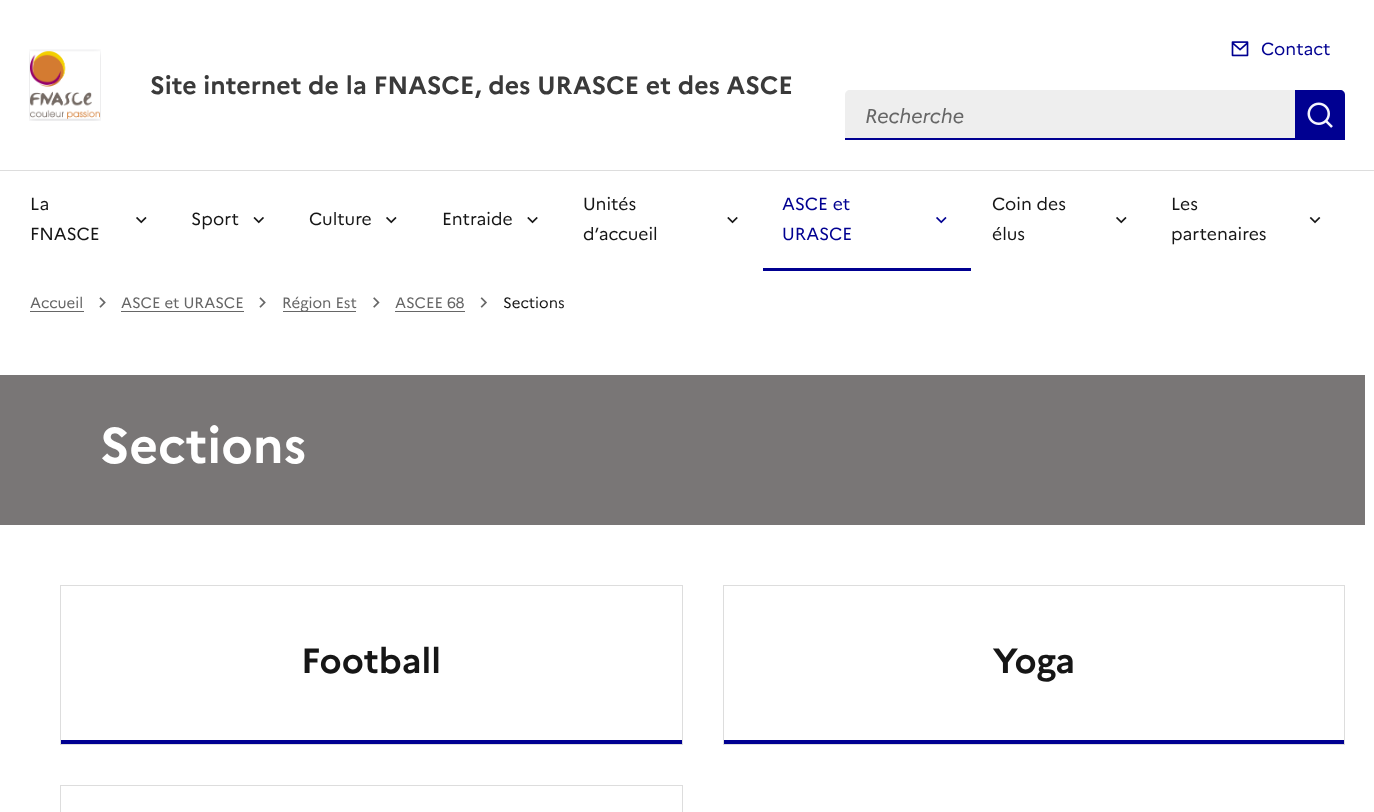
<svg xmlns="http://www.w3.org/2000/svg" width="1374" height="812">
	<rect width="100%" height="100%" fill="#FFFFFF" />
	<image x="29" y="49" width="72" height="72" href="assets/img1.png" />
	<text x="150" y="94" font-family="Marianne" font-size="25" font-weight="700" fill="#3A3A3A">Site internet de la FNASCE, des URASCE et des ASCE</text>
	<image x="1231" y="41" width="18" height="16" href="assets/img2.png" />
	<text x="1261" y="55" font-family="Marianne" font-size="17.5" fill="#000091">Contact</text>
	<path d="M850 90H1295V140H845V95C845 92 847 90 850 90Z" fill="#EEEEEE" />
	<rect x="845" y="138" width="450" height="2" fill="#000091" />
	<text x="865" y="123" font-family="Marianne" font-size="20" font-style="italic" fill="#666666">Recherche</text>
	<path d="M1295 90H1340C1343 90 1345 92 1345 95V140H1295Z" fill="#000091" />
	<image x="1307" y="102" width="26" height="26" href="assets/img3.png" />
	<rect x="0" y="170" width="1374" height="1" fill="#DDDDDD" />
	<text x="30" y="210" font-family="Marianne" font-size="17.5" fill="#161616">La</text>
	<image x="136" y="217" width="11" height="7" href="assets/img4.png" />
	<g font-family="Marianne" font-size="17.5" fill="#161616">
		<text x="30" y="240">FNASCE</text>
		<text x="191" y="225">Sport</text>
	</g>
	<image x="253" y="217" width="11" height="7" href="assets/img5.png" />
	<text x="309" y="225" font-family="Marianne" font-size="17.5" fill="#161616">Culture</text>
	<image x="386" y="217" width="11" height="7" href="assets/img4.png" />
	<text x="442" y="225" font-family="Marianne" font-size="17.5" fill="#161616">Entraide</text>
	<image x="527" y="217" width="11" height="7" href="assets/img6.png" />
	<text x="583" y="210" font-family="Marianne" font-size="17.5" fill="#161616">Unités</text>
	<image x="727" y="217" width="11" height="7" href="assets/img6.png" />
	<text x="583" y="240" font-family="Marianne" font-size="17.5" fill="#161616">d’accueil</text>
	<text x="782" y="210" font-family="Marianne" font-size="17.5" fill="#000091">ASCE et</text>
	<image x="936" y="217" width="11" height="7" href="assets/img7.png" />
	<text x="782" y="240" font-family="Marianne" font-size="17.5" fill="#000091">URASCE</text>
	<rect x="763" y="268" width="208" height="3" fill="#000091" />
	<text x="992" y="210" font-family="Marianne" font-size="17.5" fill="#161616">Coin des</text>
	<image x="1116" y="217" width="11" height="7" href="assets/img4.png" />
	<g font-family="Marianne" font-size="17.5" fill="#161616">
		<text x="992" y="240">élus</text>
		<text x="1171" y="210">Les</text>
	</g>
	<image x="1309" y="217" width="12" height="7" href="assets/img8.png" />
	<text x="1171" y="240" font-family="Marianne" font-size="17.5" fill="#161616">partenaires</text>
	<text x="30" y="308" font-family="Marianne" font-size="15" fill="#666666">Accueil</text>
	<rect x="30" y="311" width="54" height="1" fill="#666666" />
	<image x="99" y="297" width="7" height="11" href="assets/img9.png" />
	<text x="121" y="308" font-family="Marianne" font-size="15" fill="#666666">ASCE et URASCE</text>
	<rect x="121" y="311" width="123" height="1" fill="#666666" />
	<image x="259" y="297" width="7" height="11" href="assets/img9.png" />
	<rect x="283" y="311" width="73" height="1" fill="#666666" />
	<text x="282" y="308" font-family="Marianne" font-size="15" fill="#666666">Région Est</text>
	<image x="373" y="297" width="7" height="11" href="assets/img10.png" />
	<text x="395" y="308" font-family="Marianne" font-size="15" fill="#666666">ASCEE 68</text>
	<rect x="395" y="311" width="70" height="1" fill="#666666" />
	<image x="480" y="297" width="7" height="11" href="assets/img11.png" />
	<text x="503" y="308" font-family="Marianne" font-size="15" fill="#161616">Sections</text>
	<rect x="0" y="375" width="1365" height="150" fill="#797676" />
	<text x="100" y="463" font-family="Marianne" font-size="50" font-weight="700" fill="#FFFFFF">Sections</text>
	<rect x="60" y="740" width="623" height="4" fill="#000091" />
	<rect x="60.5" y="585.5" width="622" height="159" fill="none" stroke="#DDDDDD" />
	<text x="301" y="673" font-family="Marianne" font-size="35" font-weight="700" fill="#161616">Football</text>
	<rect x="723" y="740" width="622" height="4" fill="#000091" />
	<rect x="723.5" y="585.5" width="621" height="159" fill="none" stroke="#DDDDDD" />
	<text x="993" y="673" font-family="Marianne" font-size="35" font-weight="700" fill="#161616">Yoga</text>
	<rect x="60.5" y="785.5" width="622" height="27" fill="none" stroke="#DDDDDD" />
</svg>
